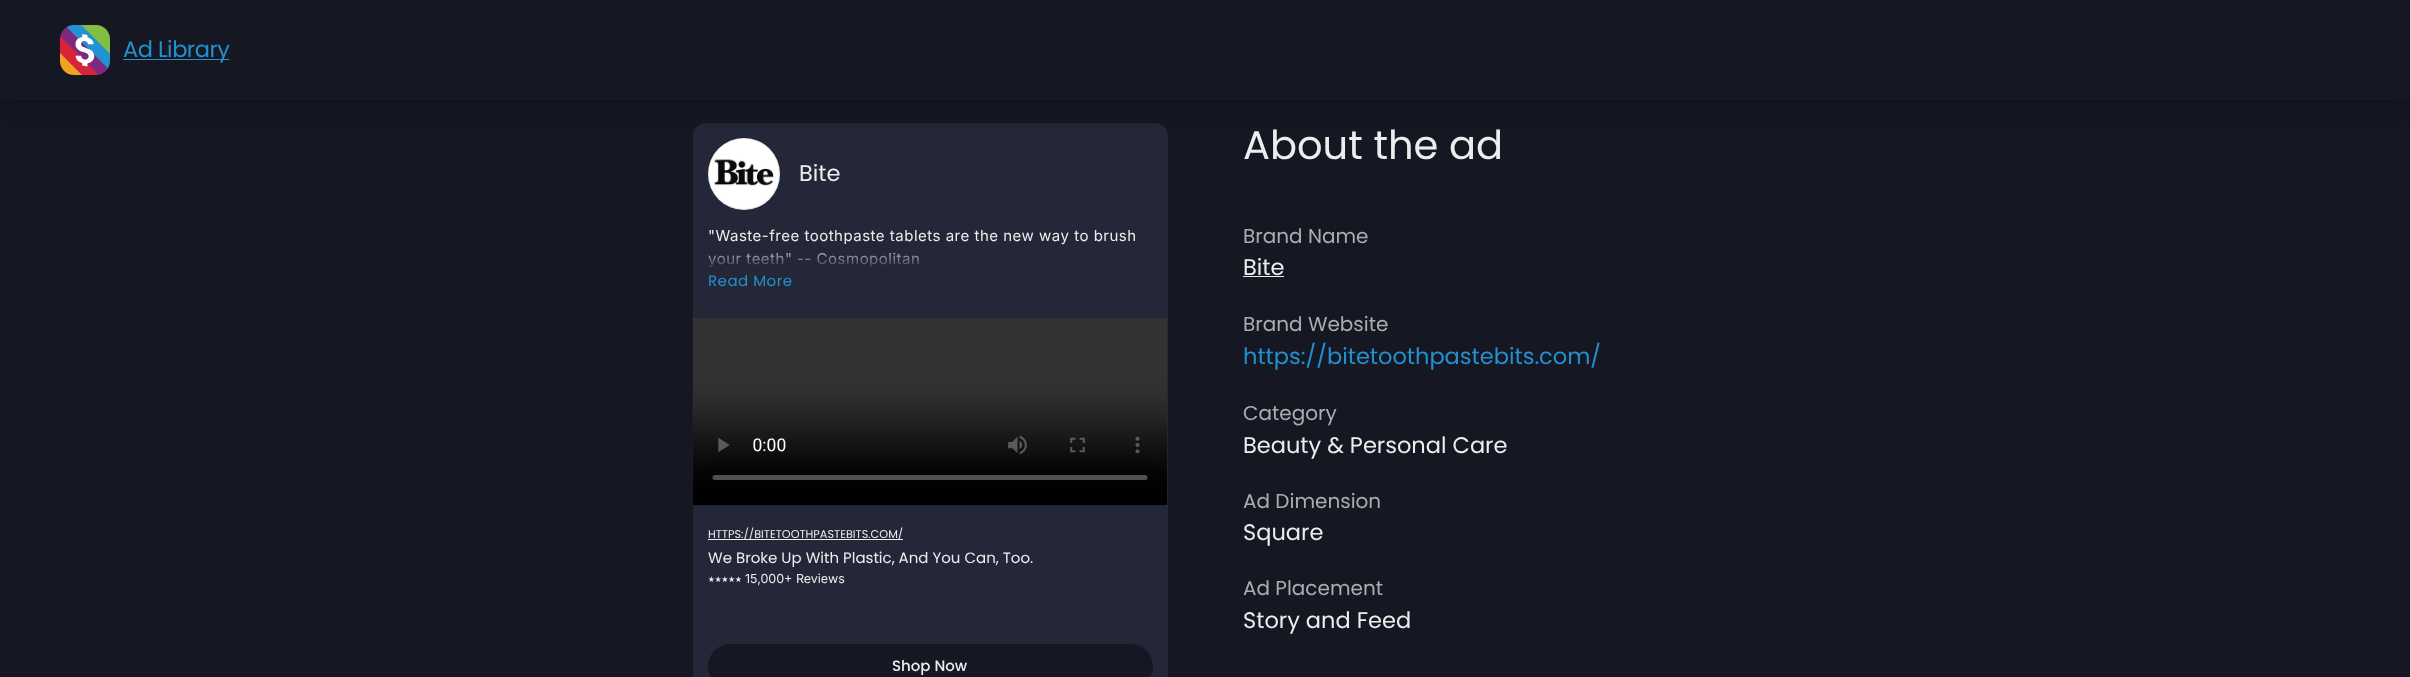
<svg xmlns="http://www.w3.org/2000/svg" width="2410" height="677">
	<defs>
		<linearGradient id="g1" gradientUnits="userSpaceOnUse" x1="930" y1="245" x2="930" y2="270"><stop offset="0" stop-color="#232737" stop-opacity="0" /><stop offset="1" stop-color="#232737" /></linearGradient>
	</defs>
	<rect width="100%" height="100%" fill="#151823" />
	<rect x="693" y="123" width="475" height="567" rx="13" fill="#232737" />
	<circle cx="744" cy="174" r="36" fill="#EDEDED" />
	<circle cx="744" cy="174" r="35.5" fill="none" stroke="#EDEDED" stroke-opacity="0.1" />
	<image x="709" y="139" width="70" height="70" href="assets/img2.png" />
	<rect x="0" y="1" width="2410" height="100" fill="#000000" fill-opacity="0.4" filter="blur(12.5px)" />
	<rect x="0" y="0" width="2410" height="100" fill="#151823" />
	<image x="60" y="25" width="50" height="50" href="assets/img1.png" />
	<rect x="123" y="59" width="106" height="1" fill="#2490CF" />
	<text x="123" y="57" font-family="Poppins" font-size="22.5" letter-spacing="-0.5" fill="#2490CF">Ad Library</text>
	<text x="799" y="181" font-family="Poppins" font-size="22.5" fill="#EDEDED">Bite</text>
	<g font-family="Inter" font-size="15" letter-spacing="0.5" fill="#EDEDED">
		<text x="708" y="241">"Waste-free toothpaste tablets are the new way to brush</text>
		<text x="708" y="264">your teeth" -- Cosmopolitan</text>
	</g>
	<rect x="708" y="252" width="211" height="16" fill="url(#g1)" />
	<text x="708" y="286" font-family="Poppins" font-size="15" letter-spacing="0.5" fill="#2490CF">Read More</text>
	<image x="692" y="318" width="476" height="187" href="assets/img3.png" />
	<rect x="708" y="539" width="195" height="1" fill="#EDEDED" />
	<text x="708" y="538" font-family="Poppins" font-size="11.25" fill="#EDEDED">HTTPS://BITETOOTHPASTEBITS.COM/</text>
	<text x="708" y="563" font-family="Poppins" font-size="15" fill="#EDEDED">We Broke Up With Plastic, And You Can, Too.</text>
	<text x="708" y="583" font-family="FreeSans" font-size="12.5" fill="#EDEDED">⭑⭑⭑⭑⭑</text>
	<text x="745" y="583" font-family="Inter" font-size="12.5" fill="#EDEDED">15,000+ Reviews</text>
	<rect x="708" y="644" width="445" height="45" rx="22.5" fill="#151823" />
	<text x="892" y="671" font-family="Poppins" font-size="15" font-weight="500" fill="#EDEDED">Shop Now</text>
	<text x="1243" y="159" font-family="Poppins" font-size="40" fill="#EDEDED">About the ad</text>
	<text x="1243" y="243" font-family="Poppins" font-size="20" fill="#ACADB0">Brand Name</text>
	<text x="1243" y="275" font-family="Poppins" font-size="22.5" fill="#EDEDED">Bite</text>
	<rect x="1243" y="276" width="41" height="1" fill="#EDEDED" />
	<text x="1243" y="331" font-family="Poppins" font-size="20" fill="#ACADB0">Brand Website</text>
	<text x="1243" y="364" font-family="Poppins" font-size="22.5" fill="#2490CF">https://bitetoothpastebits.com/</text>
	<text x="1243" y="420" font-family="Poppins" font-size="20" fill="#ACADB0">Category</text>
	<text x="1243" y="453" font-family="Poppins" font-size="22.5" fill="#EDEDED">Beauty &amp; Personal Care</text>
	<text x="1243" y="508" font-family="Poppins" font-size="20" fill="#ACADB0">Ad Dimension</text>
	<text x="1243" y="540" font-family="Poppins" font-size="22.5" fill="#EDEDED">Square</text>
	<text x="1243" y="595" font-family="Poppins" font-size="20" fill="#ACADB0">Ad Placement</text>
	<text x="1243" y="628" font-family="Poppins" font-size="22.5" fill="#EDEDED">Story and Feed</text>
</svg>
